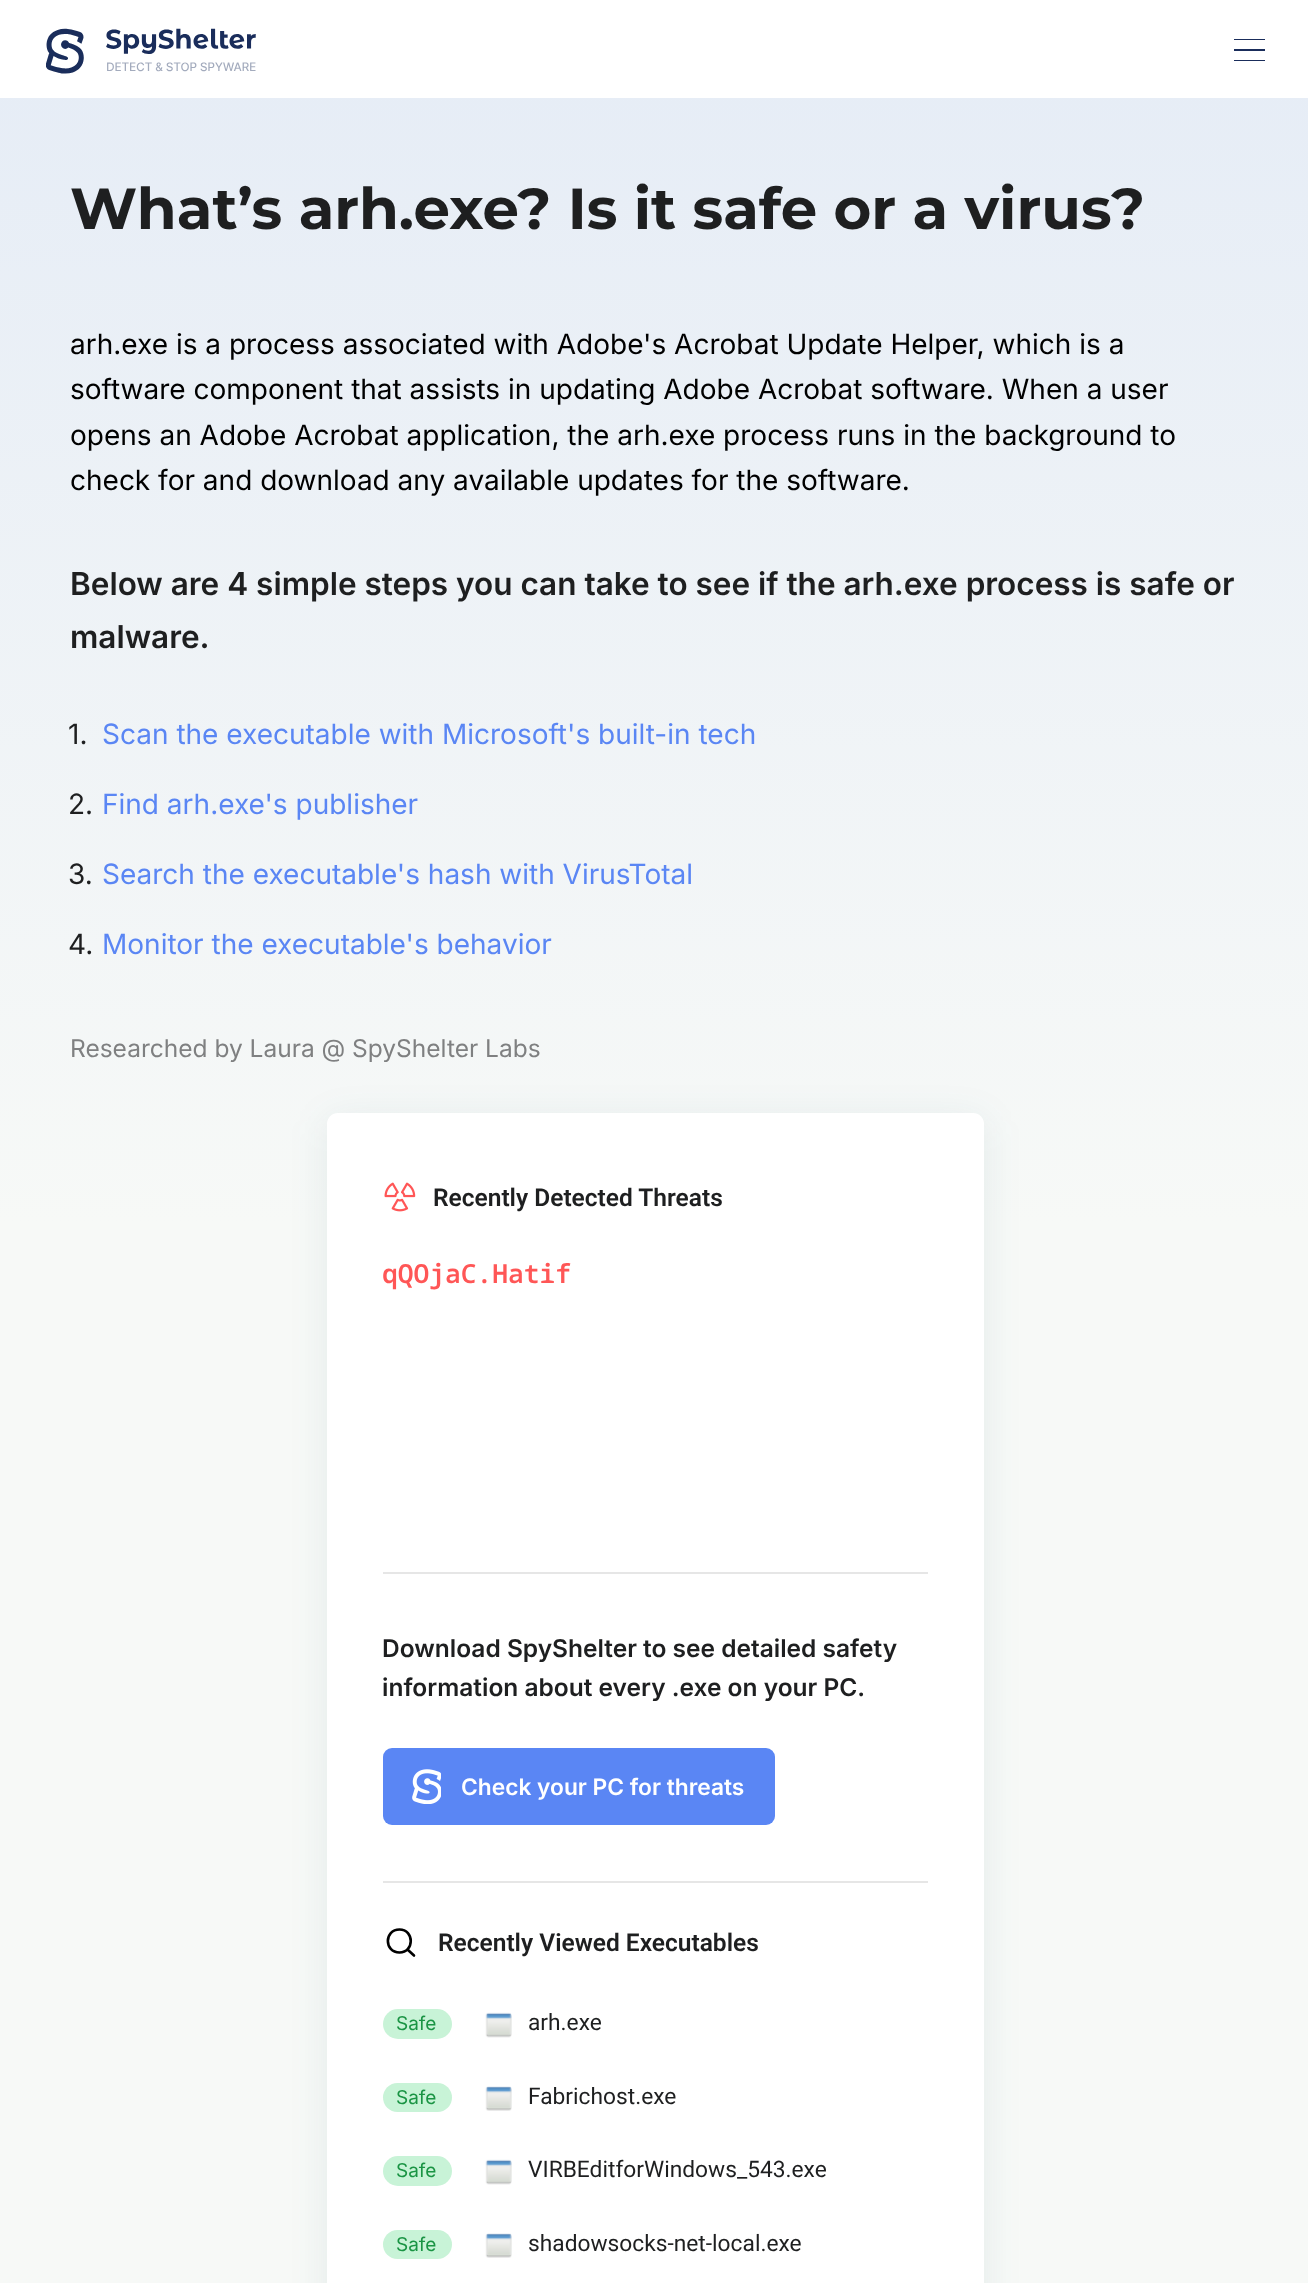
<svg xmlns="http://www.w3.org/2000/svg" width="1308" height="2283">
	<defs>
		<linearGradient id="g1" gradientUnits="userSpaceOnUse" x1="654" y1="0" x2="655" y2="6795"><stop offset="0" stop-color="#E5ECF6" /><stop offset="0.18" stop-color="#F7F9F7" /></linearGradient>
	</defs>
	<rect width="100%" height="100%" fill="#FFFFFF" />
	<rect x="0" y="98" width="1308" height="2185" fill="url(#g1)" />
	<image x="46" y="28" width="210" height="46" href="assets/img1.png" />
	<rect x="1234" y="39" width="31" height="1" fill="#1A2D5B" />
	<rect x="1234" y="49" width="31" height="2" fill="#1A2D5B" />
	<rect x="1234" y="60" width="31" height="1" fill="#1A2D5B" />
	<text x="70" y="229" font-family="Montserrat" font-size="57.75" font-weight="700" fill="#1E1F20">What’s arh.exe? Is it safe or a virus?</text>
	<g font-family="Inter" font-size="28" fill="#000000">
		<text x="70" y="354">arh.exe is a process associated with Adobe's Acrobat Update Helper, which is a</text>
		<text x="70" y="399">software component that assists in updating Adobe Acrobat software. When a user</text>
		<text x="70" y="445">opens an Adobe Acrobat application, the arh.exe process runs in the background to</text>
		<text x="70" y="490">check for and download any available updates for the software.</text>
	</g>
	<g font-family="Inter" font-size="31.5" font-weight="600" fill="#1E1F20">
		<text x="70" y="595">Below are 4 simple steps you can take to see if the arh.exe process is safe or</text>
		<text x="70" y="648">malware.</text>
	</g>
	<text x="68" y="744" font-family="Inter" font-size="28" fill="#1E1F20">1.</text>
	<text x="102" y="744" font-family="Inter" font-size="28" fill="#5A86F4">Scan the executable with Microsoft's built-in tech</text>
	<text x="68" y="814" font-family="Inter" font-size="28" fill="#1E1F20">2.</text>
	<text x="102" y="814" font-family="Inter" font-size="28" fill="#5A86F4">Find arh.exe's publisher</text>
	<text x="68" y="884" font-family="Inter" font-size="28" fill="#1E1F20">3.</text>
	<text x="102" y="884" font-family="Inter" font-size="28" fill="#5A86F4">Search the executable's hash with VirusTotal</text>
	<text x="68" y="954" font-family="Inter" font-size="28" fill="#1E1F20">4.</text>
	<text x="102" y="954" font-family="Inter" font-size="28" fill="#5A86F4">Monitor the executable's behavior</text>
	<text x="70" y="1057" font-family="Inter" font-size="24.5" fill="#7F8081">Researched by Laura @ SpyShelter Labs</text>
	<rect x="327" y="1120" width="657" height="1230" rx="11" fill="#1B5B69" fill-opacity="0.09" filter="blur(18.5px)" />
	<rect x="327" y="1113" width="657" height="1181" rx="11" fill="#FFFFFF" />
	<image x="384" y="1182" width="32" height="30" href="assets/img2.png" />
	<text x="433" y="1206" font-family="Roboto" font-size="24.5" font-weight="600" fill="#1E1F20">Recently Detected Threats</text>
	<text x="382" y="1283" font-family="Noto Sans Mono" font-size="26.25" font-weight="600" fill="#FF5656">qQOjaC.Hatif</text>
	<rect x="383" y="1572" width="545" height="2" fill="#E6E6E6" />
	<rect x="383" y="1881" width="545" height="2" fill="#E6E6E6" />
	<g font-family="Inter" font-size="24.5" font-weight="600" fill="#1E1F20">
		<text x="382" y="1657">Download SpyShelter to see detailed safety</text>
		<text x="382" y="1696">information about every .exe on your PC.</text>
	</g>
	<rect x="383" y="1748" width="392" height="77" rx="9" fill="#5A86F4" />
	<image x="412" y="1769" width="29" height="35" href="assets/img3.png" />
	<text x="461" y="1795" font-family="Inter" font-size="22.75" font-weight="600" fill="#FFFFFF">Check your PC for threats</text>
	<path d="M399.5 1952.5C414.5 1952.5 414.5 1929.5 399.5 1929.5C384 1929.5 384 1952.5 399.5 1952.5ZM414 1955.5L407.5 1949.5" fill="none" stroke="#000000" stroke-width="2.6" stroke-linecap="round" stroke-linejoin="round" />
	<text x="438" y="1951" font-family="Roboto" font-size="24.5" font-weight="600" fill="#1E1F20">Recently Viewed Executables</text>
	<rect x="383" y="2009" width="69" height="30" rx="15" fill="#C8F3D7" />
	<text x="396" y="2030" font-family="Inter" font-size="19" fill="#1A9444">Safe</text>
	<image x="485" y="2012" width="27" height="26" href="assets/img4.png" />
	<text x="528" y="2030" font-family="Roboto" font-size="22.75" fill="#1E1F20">arh.exe</text>
	<rect x="383" y="2083" width="69" height="29" rx="14.5" fill="#C8F3D7" />
	<text x="396" y="2104" font-family="Inter" font-size="19" fill="#1A9444">Safe</text>
	<image x="485" y="2086" width="27" height="25" href="assets/img5.png" />
	<text x="528" y="2104" font-family="Roboto" font-size="22.75" fill="#1E1F20">Fabrichost.exe</text>
	<rect x="383" y="2156" width="69" height="30" rx="15" fill="#C8F3D7" />
	<text x="396" y="2177" font-family="Inter" font-size="19" fill="#1A9444">Safe</text>
	<image x="485" y="2159" width="27" height="26" href="assets/img4.png" />
	<text x="528" y="2177" font-family="Roboto" font-size="22.75" fill="#1E1F20">VIRBEditforWindows_543.exe</text>
	<rect x="383" y="2230" width="69" height="29" rx="14.5" fill="#C8F3D7" />
	<text x="396" y="2251" font-family="Inter" font-size="19" fill="#1A9444">Safe</text>
	<image x="485" y="2233" width="27" height="25" href="assets/img5.png" />
	<text x="528" y="2251" font-family="Roboto" font-size="22.75" fill="#1E1F20">shadowsocks-net-local.exe</text>
</svg>
